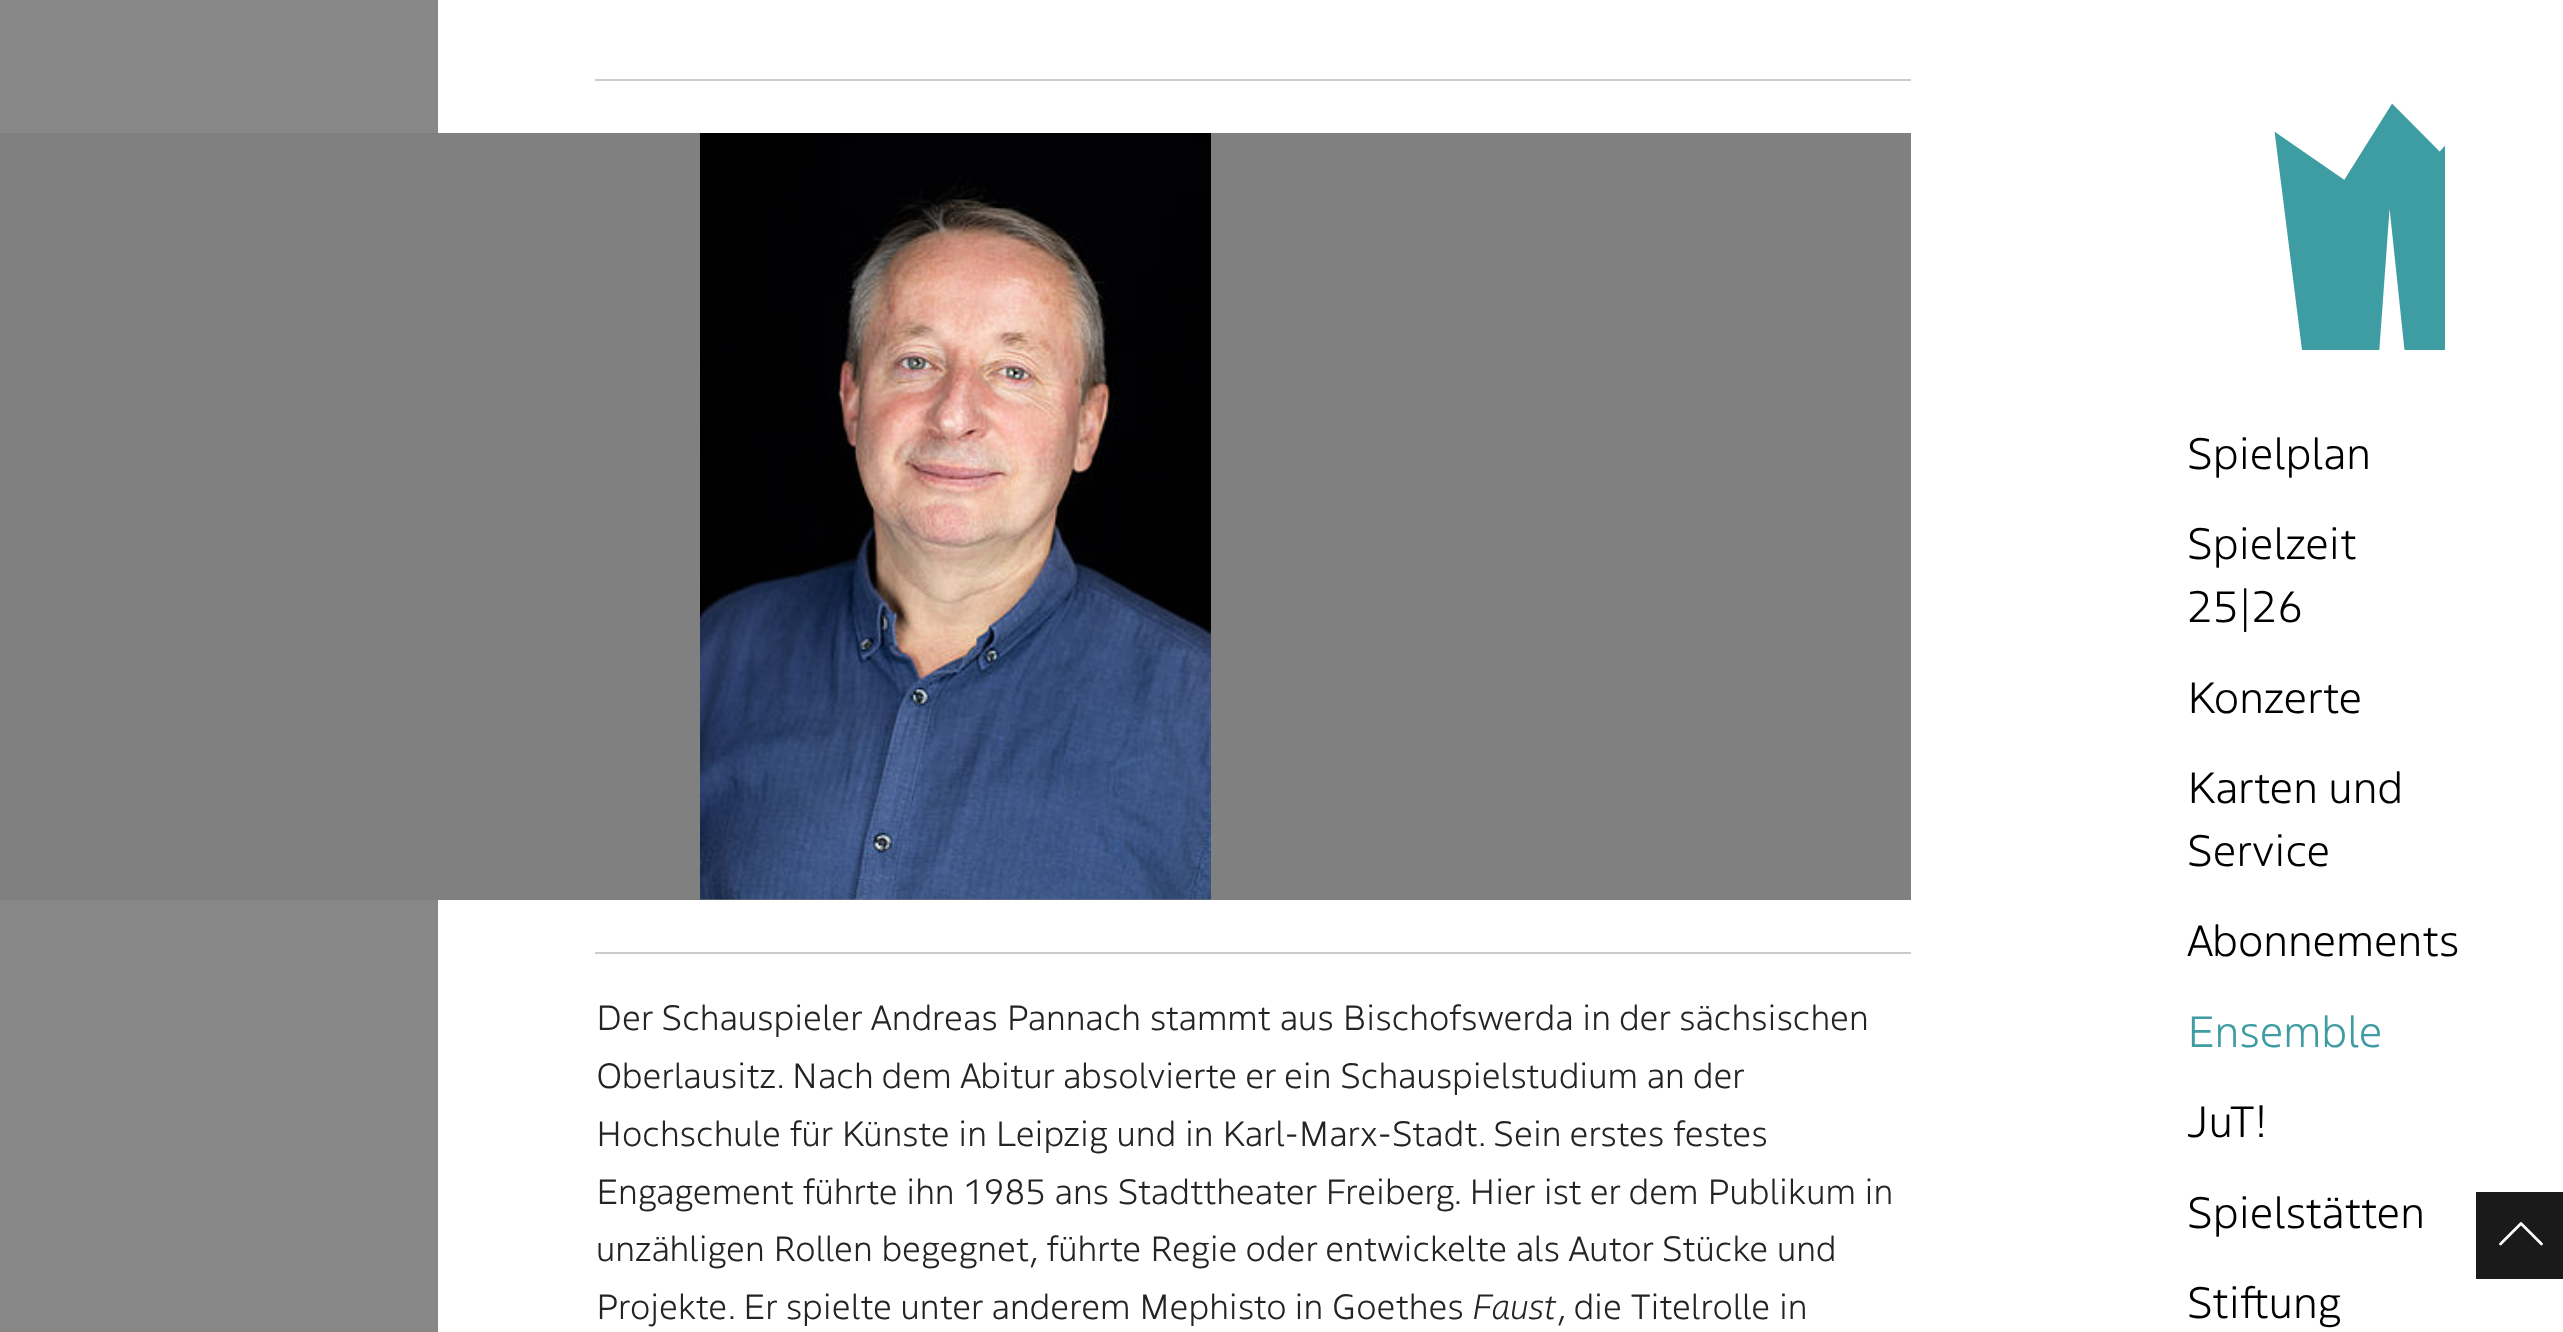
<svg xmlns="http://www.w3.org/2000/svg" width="2563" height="1332">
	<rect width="100%" height="100%" fill="#FFFFFF" />
	<rect x="0" y="0" width="438" height="1332" fill="#878787" />
	<rect x="595" y="79" width="1316" height="2" fill="#CCCCCC" />
	<rect x="0" y="133" width="1911" height="767" fill="#808080" />
	<image x="700" y="133" width="511" height="767" href="assets/img1.png" />
	<rect x="595" y="952" width="1316" height="2" fill="#CCCCCC" />
	<g font-family="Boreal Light" font-size="35" font-weight="300" fill="#242424">
		<text x="596" y="1030">Der Schauspieler Andreas Pannach stammt aus Bischofswerda in der sächsischen</text>
		<text x="596" y="1088">Oberlausitz. Nach dem Abitur absolvierte er ein Schauspielstudium an der</text>
		<text x="596" y="1146">Hochschule für Künste in Leipzig und in Karl-Marx-Stadt. Sein erstes festes</text>
		<text x="596" y="1204">Engagement führte ihn 1985 ans Stadttheater Freiberg. Hier ist er dem Publikum in</text>
		<text x="596" y="1261">unzähligen Rollen begegnet, führte Regie oder entwickelte als Autor Stücke und</text>
		<text x="596" y="1319">Projekte. Er spielte unter anderem Mephisto in Goethes</text>
	</g>
	<text x="1472" y="1319" font-family="Boreal Light" font-size="35" font-weight="300" font-style="italic" fill="#242424">Faust</text>
	<text x="1557" y="1319" font-family="Boreal Light" font-size="35" font-weight="300" fill="#242424">, die Titelrolle in</text>
	<image x="2274" y="103" width="171" height="247" href="assets/img2.png" />
	<g font-family="Boreal Light" font-size="43.75" font-weight="300" fill="#000000">
		<text x="2187" y="469">Spielplan</text>
		<text x="2187" y="559">Spielzeit</text>
		<text x="2187" y="622">25|26</text>
		<text x="2187" y="713">Konzerte</text>
		<text x="2187" y="803">Karten und</text>
		<text x="2187" y="866">Service</text>
		<text x="2187" y="956">Abonnements</text>
	</g>
	<text x="2187" y="1047" font-family="Boreal Light" font-size="43.75" font-weight="300" fill="#3E9CA2">Ensemble</text>
	<g font-family="Boreal Light" font-size="43.75" font-weight="300" fill="#000000">
		<text x="2187" y="1137">JuT!</text>
		<text x="2187" y="1228">Spielstätten</text>
		<text x="2187" y="1318">Stiftung</text>
	</g>
	<rect x="2476" y="1192" width="87" height="87" fill="#1A1A1A" />
	<path d="M2541.5 1244L2521 1223.5L2500.5 1244" fill="none" stroke="#FFFFFF" stroke-width="2.7" stroke-linecap="round" stroke-linejoin="round" />
</svg>
